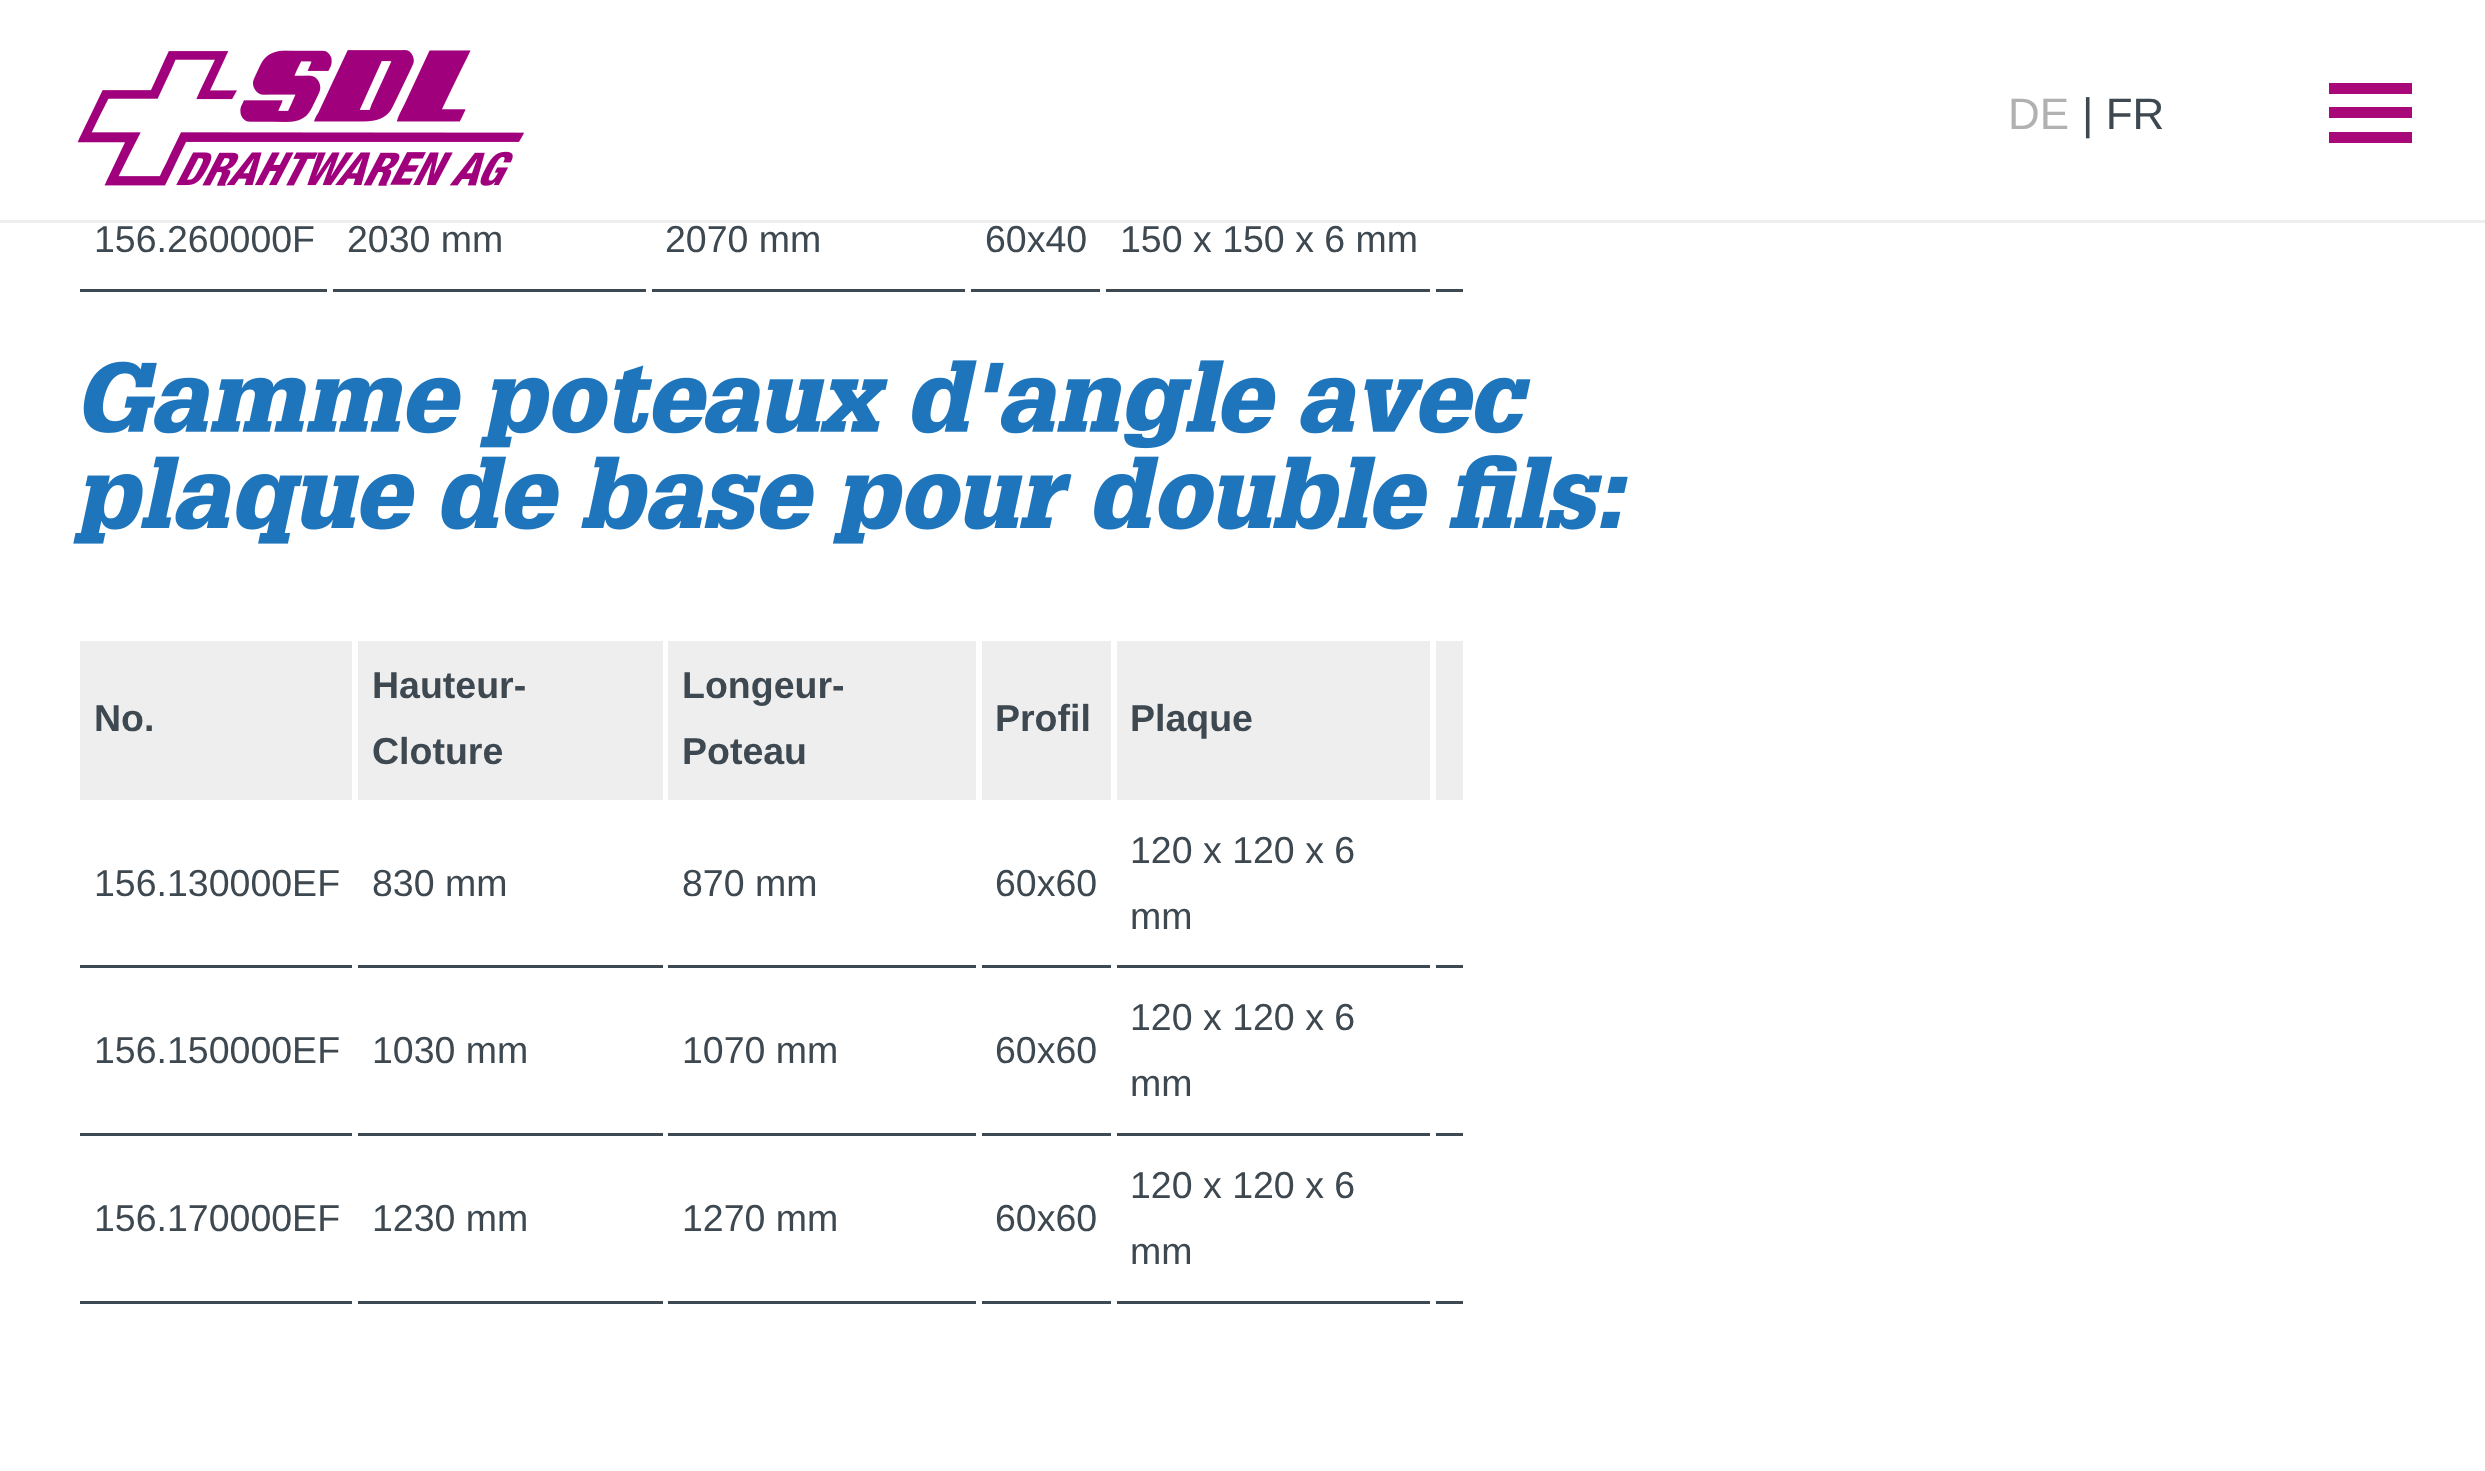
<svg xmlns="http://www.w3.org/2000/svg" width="2485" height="1471">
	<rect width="100%" height="100%" fill="#FFFFFF" />
	<rect x="0" y="220" width="2485" height="3" fill="#EEEEEE" />
	<image x="77" y="50" width="447" height="136" href="assets/img1.png" />
	<text x="2008" y="129" font-family="Liberation Sans" font-size="44" fill="#B1B1B1">DE</text>
	<text x="2082" y="129" font-family="Liberation Sans" font-size="44" fill="#3D4850">| FR</text>
	<rect x="2329" y="83" width="83" height="11" fill="#A80878" />
	<rect x="2329" y="107" width="83" height="11" fill="#A80878" />
	<rect x="2329" y="132" width="83" height="11" fill="#A80878" />
	<rect x="80" y="289" width="247" height="3" fill="#3D4850" />
	<text x="94" y="252" font-family="Liberation Sans" font-size="37.5" fill="#3D4850">156.260000F</text>
	<rect x="333" y="289" width="313" height="3" fill="#3D4850" />
	<text x="347" y="252" font-family="Liberation Sans" font-size="37.5" fill="#3D4850">2030 mm</text>
	<rect x="652" y="289" width="313" height="3" fill="#3D4850" />
	<text x="665" y="252" font-family="Liberation Sans" font-size="37.5" fill="#3D4850">2070 mm</text>
	<rect x="971" y="289" width="129" height="3" fill="#3D4850" />
	<text x="985" y="252" font-family="Liberation Sans" font-size="37.5" fill="#3D4850">60x40</text>
	<rect x="1106" y="289" width="324" height="3" fill="#3D4850" />
	<text x="1120" y="252" font-family="Liberation Sans" font-size="37.5" fill="#3D4850">150 x 150 x 6 mm</text>
	<rect x="1436" y="289" width="27" height="3" fill="#3D4850" />
	<image x="83" y="360" width="1448" height="89" href="assets/img2.png" />
	<image x="73" y="455" width="1555" height="89" href="assets/img3.png" />
	<rect x="80" y="641" width="272" height="159" fill="#EEEEEE" />
	<text x="94" y="731" font-family="Liberation Sans" font-size="37.5" font-weight="700" fill="#3D4850">No.</text>
	<rect x="358" y="641" width="305" height="159" fill="#EEEEEE" />
	<g font-family="Liberation Sans" font-size="37.5" font-weight="700" fill="#3D4850">
		<text x="372" y="698">Hauteur-</text>
		<text x="372" y="764">Cloture</text>
	</g>
	<rect x="668" y="641" width="308" height="159" fill="#EEEEEE" />
	<g font-family="Liberation Sans" font-size="37.5" font-weight="700" fill="#3D4850">
		<text x="682" y="698">Longeur-</text>
		<text x="682" y="764">Poteau</text>
	</g>
	<rect x="982" y="641" width="129" height="159" fill="#EEEEEE" />
	<text x="995" y="731" font-family="Liberation Sans" font-size="37.5" font-weight="700" fill="#3D4850">Profil</text>
	<rect x="1117" y="641" width="313" height="159" fill="#EEEEEE" />
	<text x="1130" y="731" font-family="Liberation Sans" font-size="37.5" font-weight="700" fill="#3D4850">Plaque</text>
	<rect x="1436" y="641" width="27" height="159" fill="#EEEEEE" />
	<rect x="80" y="965" width="272" height="3" fill="#3D4850" />
	<text x="94" y="896" font-family="Liberation Sans" font-size="37.5" fill="#3D4850">156.130000EF</text>
	<rect x="358" y="965" width="305" height="3" fill="#3D4850" />
	<text x="372" y="896" font-family="Liberation Sans" font-size="37.5" fill="#3D4850">830 mm</text>
	<rect x="668" y="965" width="308" height="3" fill="#3D4850" />
	<text x="682" y="896" font-family="Liberation Sans" font-size="37.5" fill="#3D4850">870 mm</text>
	<rect x="982" y="965" width="129" height="3" fill="#3D4850" />
	<text x="995" y="896" font-family="Liberation Sans" font-size="37.5" fill="#3D4850">60x60</text>
	<rect x="1117" y="965" width="313" height="3" fill="#3D4850" />
	<g font-family="Liberation Sans" font-size="37.5" fill="#3D4850">
		<text x="1130" y="863">120 x 120 x 6</text>
		<text x="1130" y="929">mm</text>
	</g>
	<rect x="1436" y="965" width="27" height="3" fill="#3D4850" />
	<rect x="80" y="1133" width="272" height="3" fill="#3D4850" />
	<text x="94" y="1063" font-family="Liberation Sans" font-size="37.5" fill="#3D4850">156.150000EF</text>
	<rect x="358" y="1133" width="305" height="3" fill="#3D4850" />
	<text x="372" y="1063" font-family="Liberation Sans" font-size="37.5" fill="#3D4850">1030 mm</text>
	<rect x="668" y="1133" width="308" height="3" fill="#3D4850" />
	<text x="682" y="1063" font-family="Liberation Sans" font-size="37.5" fill="#3D4850">1070 mm</text>
	<rect x="982" y="1133" width="129" height="3" fill="#3D4850" />
	<text x="995" y="1063" font-family="Liberation Sans" font-size="37.5" fill="#3D4850">60x60</text>
	<rect x="1117" y="1133" width="313" height="3" fill="#3D4850" />
	<g font-family="Liberation Sans" font-size="37.5" fill="#3D4850">
		<text x="1130" y="1030">120 x 120 x 6</text>
		<text x="1130" y="1096">mm</text>
	</g>
	<rect x="1436" y="1133" width="27" height="3" fill="#3D4850" />
	<rect x="80" y="1301" width="272" height="3" fill="#3D4850" />
	<text x="94" y="1231" font-family="Liberation Sans" font-size="37.5" fill="#3D4850">156.170000EF</text>
	<rect x="358" y="1301" width="305" height="3" fill="#3D4850" />
	<text x="372" y="1231" font-family="Liberation Sans" font-size="37.5" fill="#3D4850">1230 mm</text>
	<rect x="668" y="1301" width="308" height="3" fill="#3D4850" />
	<text x="682" y="1231" font-family="Liberation Sans" font-size="37.5" fill="#3D4850">1270 mm</text>
	<rect x="982" y="1301" width="129" height="3" fill="#3D4850" />
	<text x="995" y="1231" font-family="Liberation Sans" font-size="37.5" fill="#3D4850">60x60</text>
	<rect x="1117" y="1301" width="313" height="3" fill="#3D4850" />
	<g font-family="Liberation Sans" font-size="37.5" fill="#3D4850">
		<text x="1130" y="1198">120 x 120 x 6</text>
		<text x="1130" y="1264">mm</text>
	</g>
	<rect x="1436" y="1301" width="27" height="3" fill="#3D4850" />
</svg>
